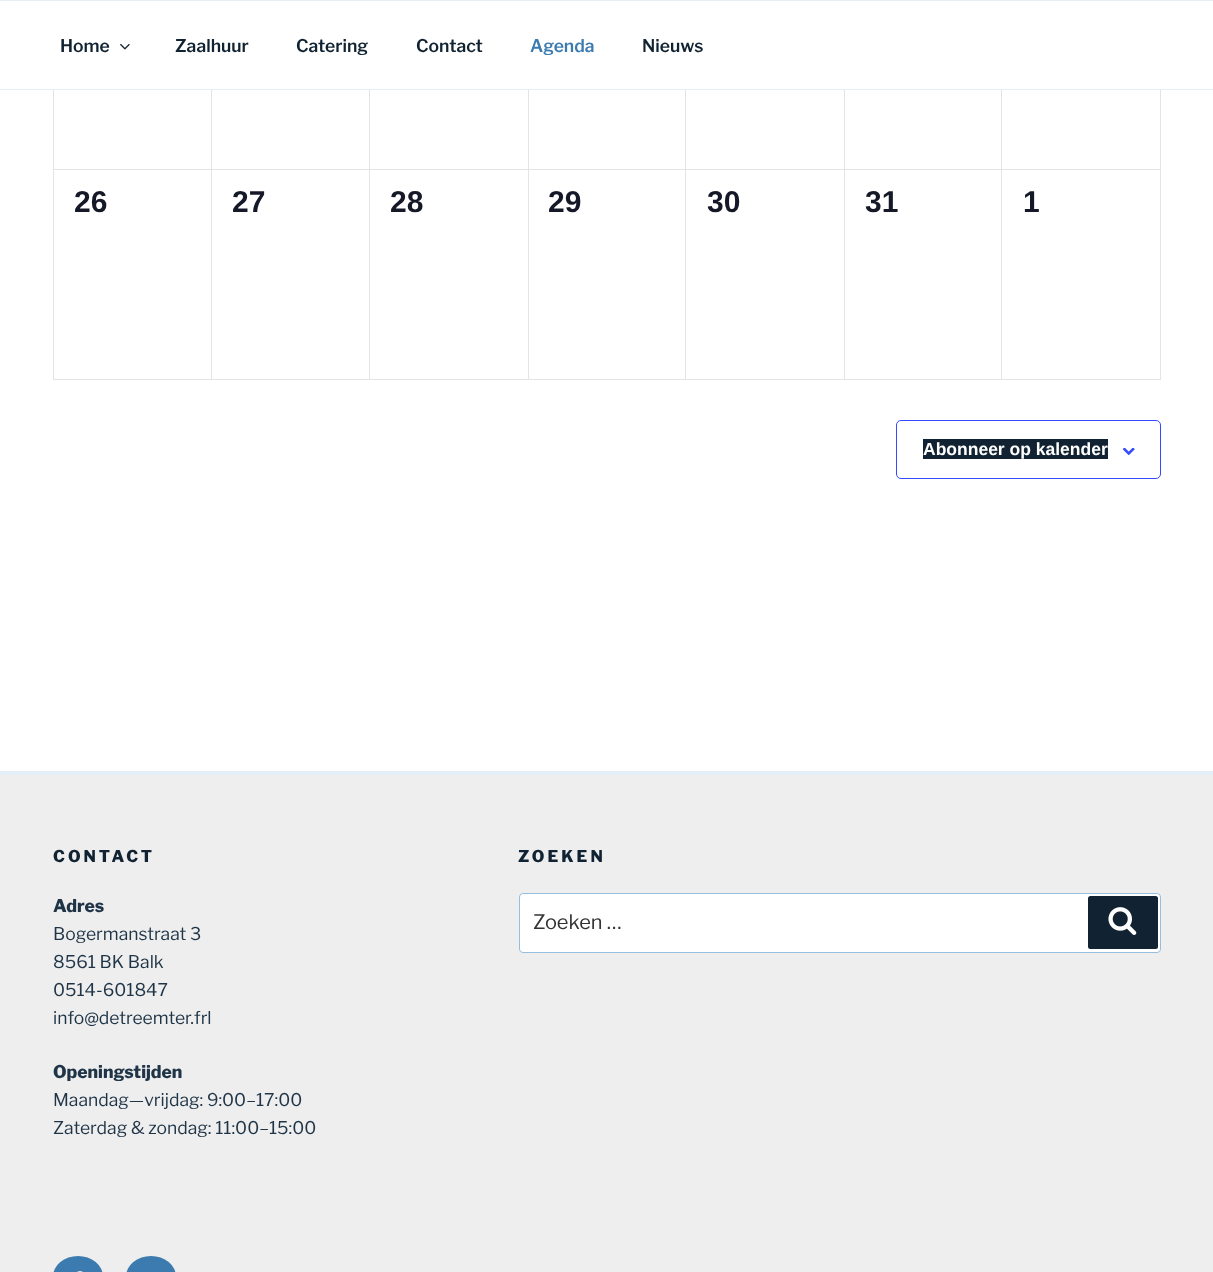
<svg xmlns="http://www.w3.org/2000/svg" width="1213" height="1272">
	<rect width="100%" height="100%" fill="#FFFFFF" />
	<rect x="0" y="0" width="1213" height="1" fill="#E4EEF6" />
	<rect x="0" y="89" width="1213" height="1" fill="#E4EEF6" />
	<text x="60" y="52" font-family="Libre Franklin" font-size="17.5" font-weight="600" fill="#112332">Home</text>
	<image x="120" y="43" width="10" height="7" href="assets/img1.png" />
	<g font-family="Libre Franklin" font-size="17.5" font-weight="600" fill="#112332">
		<text x="175" y="52">Zaalhuur</text>
		<text x="296" y="52">Catering</text>
		<text x="416" y="52">Contact</text>
	</g>
	<text x="530" y="52" font-family="Libre Franklin" font-size="17.5" font-weight="600" fill="#3B7BB0">Agenda</text>
	<text x="642" y="52" font-family="Libre Franklin" font-size="17.5" font-weight="600" fill="#112332">Nieuws</text>
	<rect x="53" y="90" width="1" height="290" fill="#E4E4E4" />
	<rect x="211" y="90" width="1" height="290" fill="#E4E4E4" />
	<rect x="54" y="169" width="159" height="1" fill="#E4E4E4" />
	<rect x="369" y="90" width="1" height="290" fill="#E4E4E4" />
	<rect x="213" y="169" width="157" height="1" fill="#E4E4E4" />
	<rect x="528" y="90" width="1" height="290" fill="#E4E4E4" />
	<rect x="370" y="169" width="159" height="1" fill="#E4E4E4" />
	<rect x="685" y="90" width="1" height="290" fill="#E4E4E4" />
	<rect x="529" y="169" width="157" height="1" fill="#E4E4E4" />
	<rect x="844" y="90" width="1" height="290" fill="#E4E4E4" />
	<rect x="686" y="169" width="159" height="1" fill="#E4E4E4" />
	<rect x="1001" y="90" width="1" height="290" fill="#E4E4E4" />
	<rect x="845" y="169" width="158" height="1" fill="#E4E4E4" />
	<rect x="1160" y="90" width="1" height="290" fill="#E4E4E4" />
	<rect x="1003" y="169" width="158" height="1" fill="#E4E4E4" />
	<rect x="54" y="379" width="1107" height="1" fill="#E4E4E4" />
	<g font-family="Liberation Sans" font-size="30" font-weight="700" fill="#141827">
		<text x="74" y="212">26</text>
		<text x="232" y="212">27</text>
		<text x="390" y="212">28</text>
		<text x="548" y="212">29</text>
		<text x="707" y="212">30</text>
		<text x="865" y="212">31</text>
		<text x="1023" y="212">1</text>
	</g>
	<rect x="896.5" y="420.5" width="264" height="58" rx="4.5" fill="none" stroke="#334AFF" />
	<rect x="923" y="439" width="185" height="20" fill="#112332" />
	<text x="923" y="455" font-family="Liberation Sans" font-size="17.5" font-weight="700" fill="#FFFFFF">Abonneer op kalender</text>
	<image x="1123" y="448" width="12" height="7" href="assets/img2.png" />
	<rect x="0" y="775" width="1213" height="497" fill="#EEEEEE" />
	<rect x="0" y="771" width="1213" height="4" fill="#E4EEF6" />
	<text x="53" y="862" font-family="Libre Franklin" font-size="16.25" font-weight="800" letter-spacing="3" fill="#112332">CONTACT</text>
	<text x="53" y="912" font-family="Libre Franklin" font-size="17.5" font-weight="800" fill="#1F3547">Adres</text>
	<g font-family="Libre Franklin" font-size="17.5" fill="#1F3547">
		<text x="53" y="940">Bogermanstraat 3</text>
		<text x="53" y="968">8561 BK Balk</text>
		<text x="53" y="996">0514-601847</text>
		<text x="53" y="1024">info@detreemter.frl</text>
	</g>
	<text x="53" y="1078" font-family="Libre Franklin" font-size="17.5" font-weight="800" fill="#1F3547">Openingstijden</text>
	<g font-family="Libre Franklin" font-size="17.5" fill="#1F3547">
		<text x="53" y="1106">Maandag—vrijdag: 9:00–17:00</text>
		<text x="53" y="1134">Zaterdag &amp; zondag: 11:00–15:00</text>
	</g>
	<text x="518" y="862" font-family="Libre Franklin" font-size="16.25" font-weight="800" letter-spacing="3" fill="#112332">ZOEKEN</text>
	<rect x="519.5" y="893.5" width="641" height="59" rx="3.5" fill="#FFFFFF" stroke="#98BEDD" />
	<text x="533" y="929" font-family="Libre Franklin" font-size="20" fill="#333333">Zoeken …</text>
	<rect x="1088" y="896" width="70" height="53" rx="2.5" fill="#112332" />
	<image x="1108" y="907" width="29" height="28" href="assets/img3.png" />
	<rect x="53" y="1256" width="50" height="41" rx="25" fill="#3B7BB0" />
	<image x="77" y="1271" width="6" height="1" href="assets/img4.png" />
	<rect x="126" y="1256" width="50" height="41" rx="25" fill="#3B7BB0" />
</svg>
